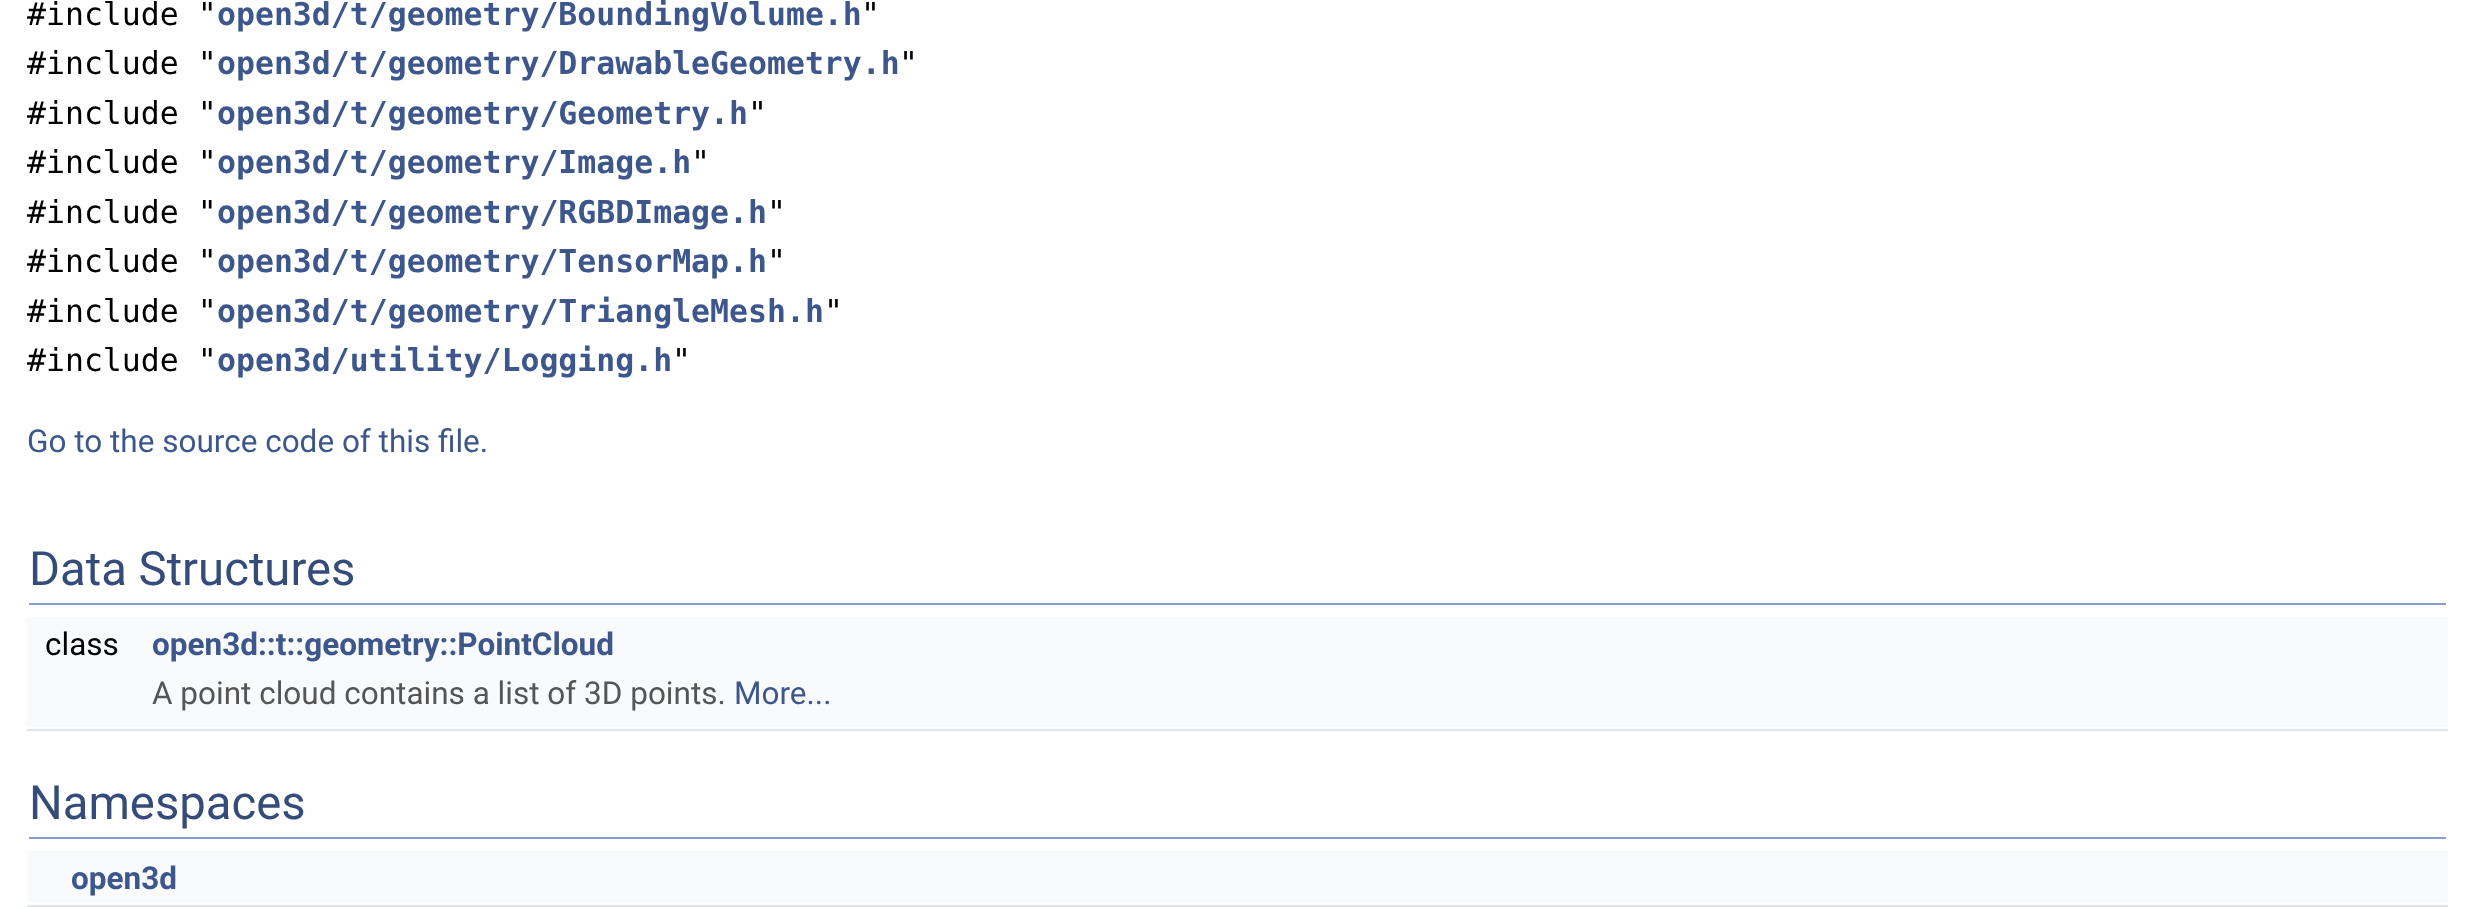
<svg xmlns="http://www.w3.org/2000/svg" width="2465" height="907">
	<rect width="100%" height="100%" fill="#FFFFFF" />
	<text x="27" y="25" font-family="DejaVu Sans Mono" font-size="31.5" fill="#000000">#include "</text>
	<text x="217" y="25" font-family="DejaVu Sans Mono" font-size="31.5" font-weight="700" fill="#3D578C">open3d/t/geometry/BoundingVolume.h</text>
	<g font-family="DejaVu Sans Mono" font-size="31.5" fill="#000000">
		<text x="861" y="25">"</text>
		<text x="27" y="74">#include "</text>
	</g>
	<text x="217" y="74" font-family="DejaVu Sans Mono" font-size="31.5" font-weight="700" fill="#3D578C">open3d/t/geometry/DrawableGeometry.h</text>
	<g font-family="DejaVu Sans Mono" font-size="31.5" fill="#000000">
		<text x="899" y="74">"</text>
		<text x="27" y="124">#include "</text>
	</g>
	<text x="217" y="124" font-family="DejaVu Sans Mono" font-size="31.5" font-weight="700" fill="#3D578C">open3d/t/geometry/Geometry.h</text>
	<g font-family="DejaVu Sans Mono" font-size="31.5" fill="#000000">
		<text x="748" y="124">"</text>
		<text x="27" y="173">#include "</text>
	</g>
	<text x="217" y="173" font-family="DejaVu Sans Mono" font-size="31.5" font-weight="700" fill="#3D578C">open3d/t/geometry/Image.h</text>
	<g font-family="DejaVu Sans Mono" font-size="31.5" fill="#000000">
		<text x="691" y="173">"</text>
		<text x="27" y="223">#include "</text>
	</g>
	<text x="217" y="223" font-family="DejaVu Sans Mono" font-size="31.5" font-weight="700" fill="#3D578C">open3d/t/geometry/RGBDImage.h</text>
	<g font-family="DejaVu Sans Mono" font-size="31.5" fill="#000000">
		<text x="767" y="223">"</text>
		<text x="27" y="272">#include "</text>
	</g>
	<text x="217" y="272" font-family="DejaVu Sans Mono" font-size="31.5" font-weight="700" fill="#3D578C">open3d/t/geometry/TensorMap.h</text>
	<g font-family="DejaVu Sans Mono" font-size="31.5" fill="#000000">
		<text x="767" y="272">"</text>
		<text x="27" y="322">#include "</text>
	</g>
	<text x="217" y="322" font-family="DejaVu Sans Mono" font-size="31.5" font-weight="700" fill="#3D578C">open3d/t/geometry/TriangleMesh.h</text>
	<g font-family="DejaVu Sans Mono" font-size="31.5" fill="#000000">
		<text x="824" y="322">"</text>
		<text x="27" y="371">#include "</text>
	</g>
	<text x="217" y="371" font-family="DejaVu Sans Mono" font-size="31.5" font-weight="700" fill="#3D578C">open3d/utility/Logging.h</text>
	<text x="672" y="371" font-family="DejaVu Sans Mono" font-size="31.5" fill="#000000">"</text>
	<text x="27" y="452" font-family="Roboto" font-size="31.5" fill="#3D578C">Go to the source code of this file.</text>
	<rect x="29" y="603" width="2417" height="2" fill="#879ECB" />
	<text x="29" y="585" font-family="Roboto" font-size="47.25" fill="#354C7B">Data Structures</text>
	<rect x="27" y="617" width="2421" height="51" fill="#F9FAFC" />
	<text x="45" y="655" font-family="Roboto" font-size="31.5" fill="#000000">class</text>
	<text x="152" y="655" font-family="Roboto" font-size="31.5" font-weight="700" fill="#3D578C">open3d::t::geometry::PointCloud</text>
	<rect x="27" y="668" width="2421" height="59" fill="#F9FAFC" />
	<text x="152" y="704" font-family="Roboto" font-size="31.5" fill="#555555">A point cloud contains a list of 3D points.</text>
	<text x="734" y="704" font-family="Roboto" font-size="31.5" fill="#3D578C">More...</text>
	<rect x="27" y="729" width="2421" height="2" fill="#DEE4F0" />
	<rect x="29" y="837" width="2417" height="2" fill="#879ECB" />
	<text x="29" y="819" font-family="Roboto" font-size="47.25" fill="#354C7B">Namespaces</text>
	<rect x="27" y="851" width="2421" height="51" fill="#F9FAFC" />
	<text x="71" y="889" font-family="Roboto" font-size="31.5" font-weight="700" fill="#3D578C">open3d</text>
	<rect x="27" y="905" width="2421" height="2" fill="#DEE4F0" />
</svg>
